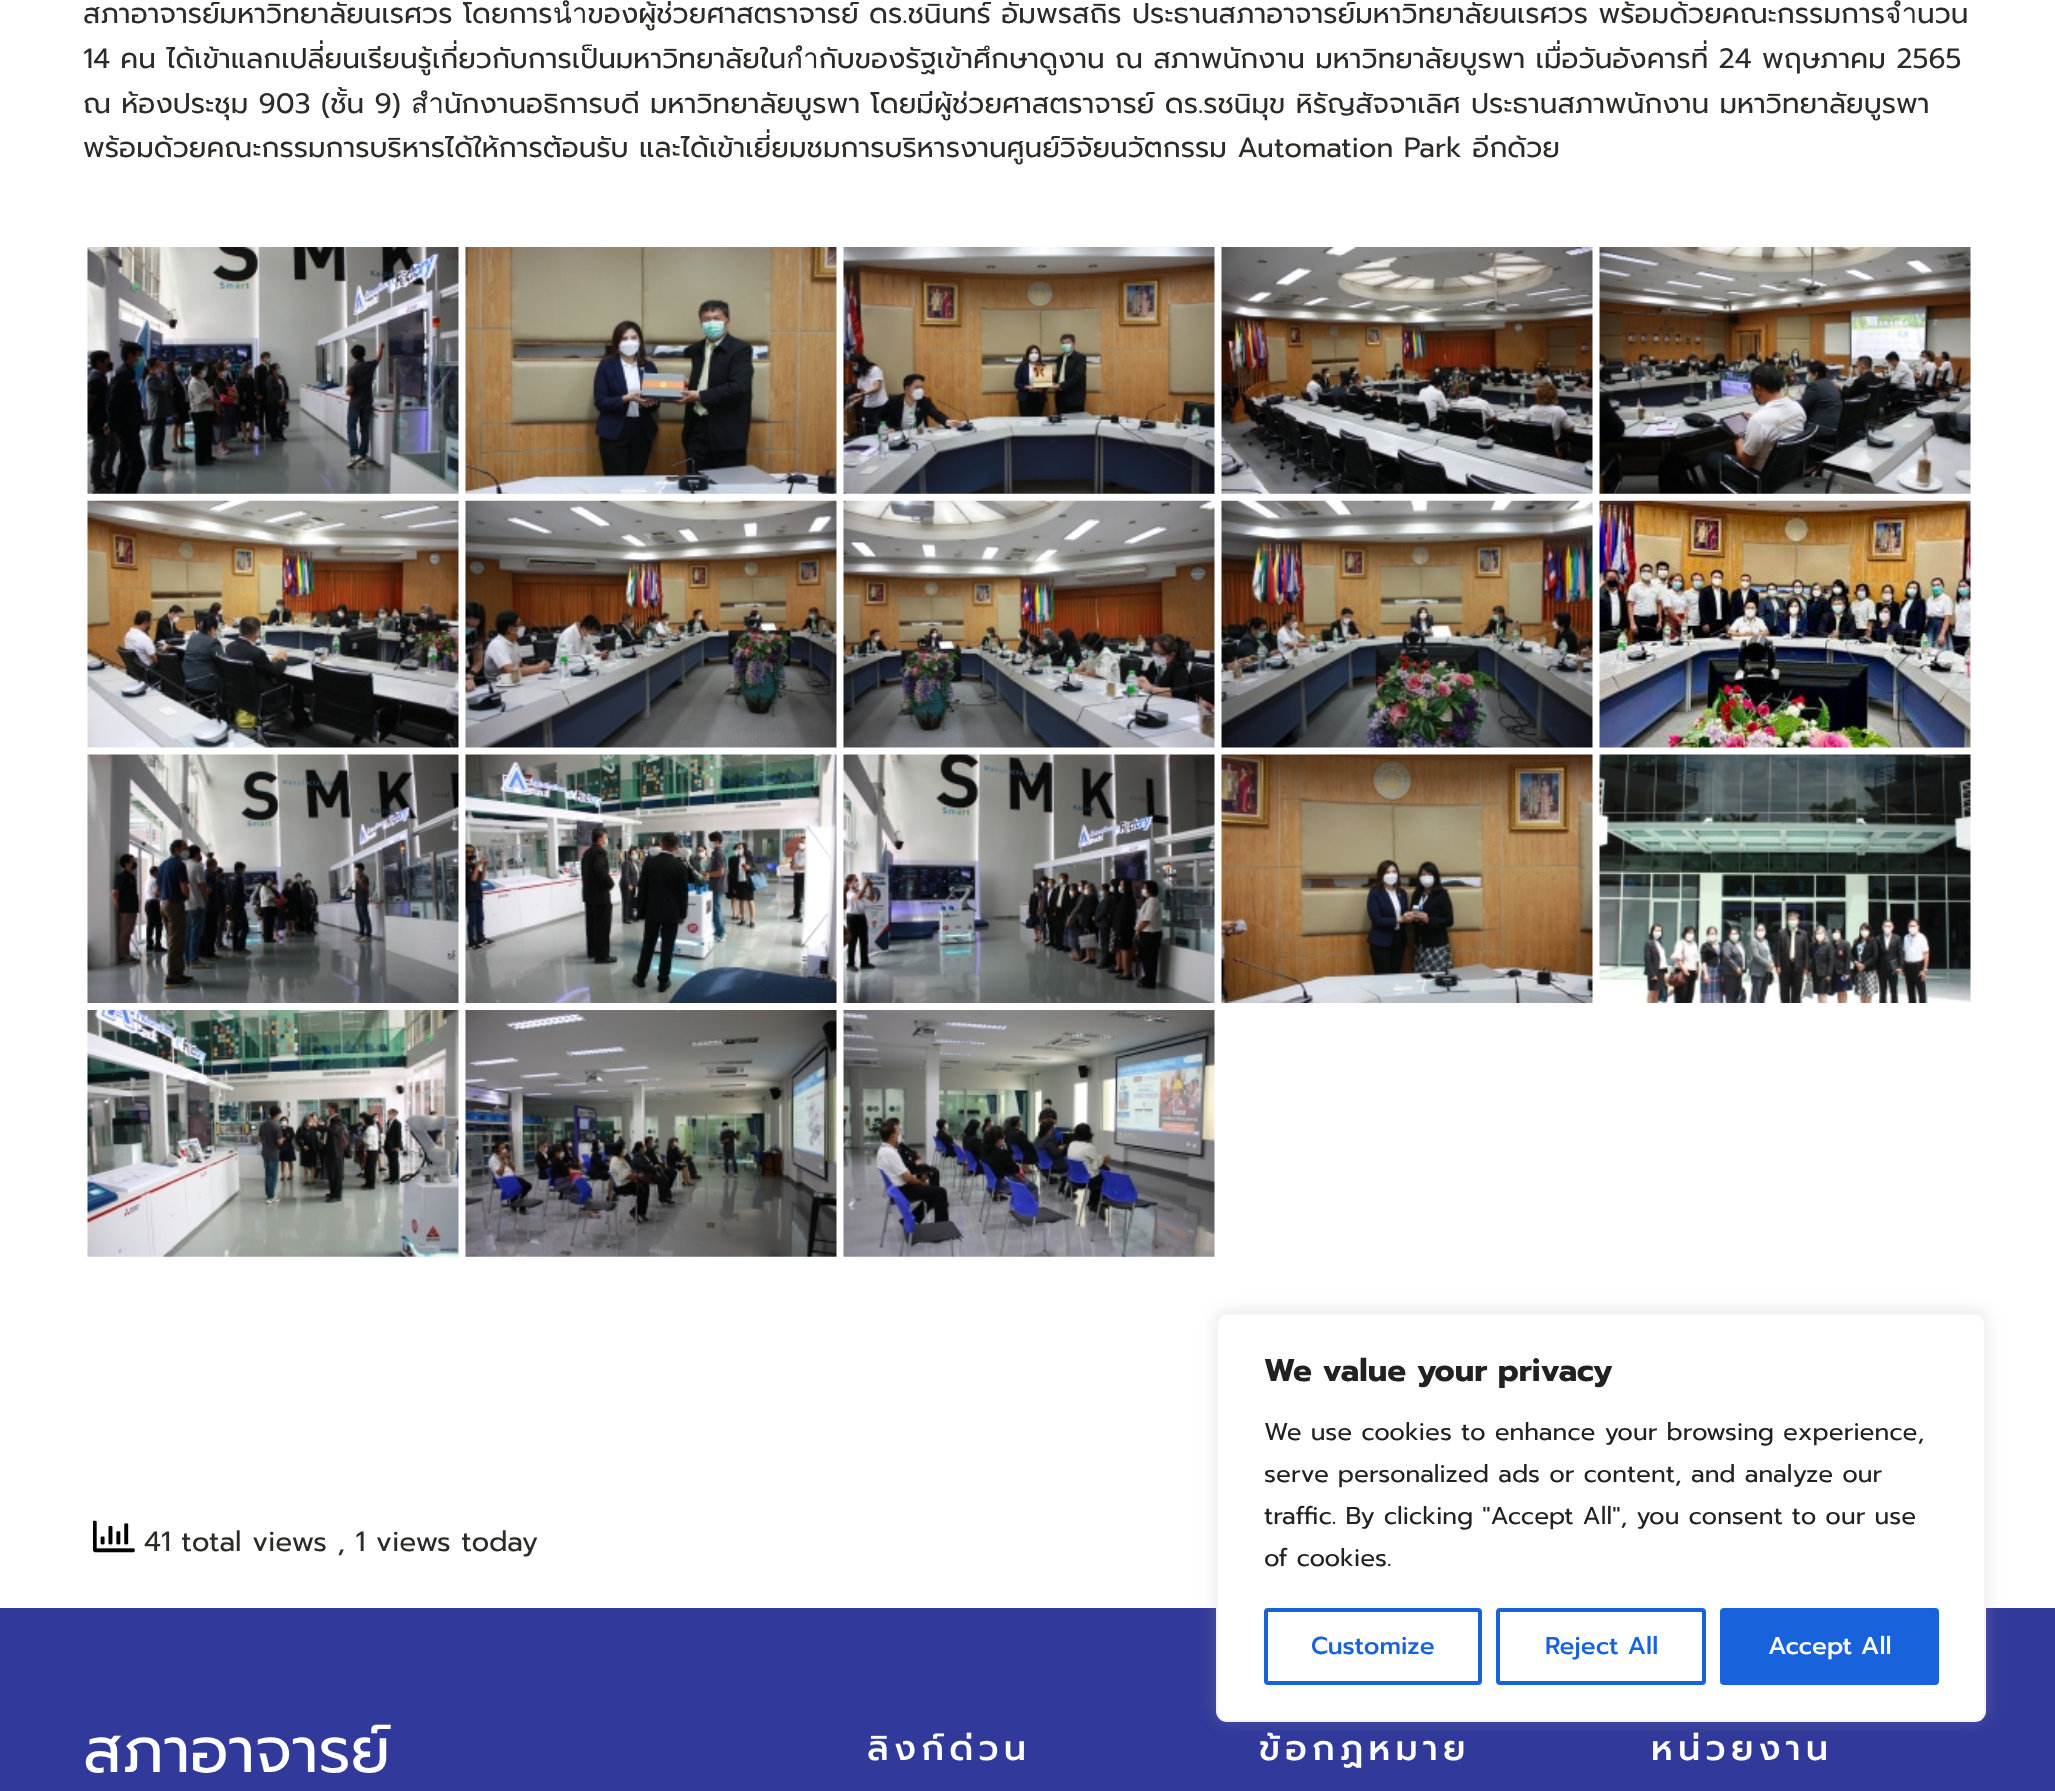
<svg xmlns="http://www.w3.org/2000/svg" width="2055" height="1791">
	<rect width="100%" height="100%" fill="#FFFFFF" />
	<g font-family="Prompt" font-size="28" fill="#2B2C28">
		<text x="83" y="23">สภาอาจารย์มหาวิทยาลัยนเรศวร โดยการนำของผู้ช่วยศาสตราจารย์ ดร.ชนินทร์ อัมพรสถิร ประธานสภาอาจารย์มหาวิทยาลัยนเรศวร พร้อมด้วยคณะกรรมการจำนวน</text>
		<text x="83" y="68">14 คน ได้เข้าแลกเปลี่ยนเรียนรู้เกี่ยวกับการเป็นมหาวิทยาลัยในกำกับของรัฐเข้าศึกษาดูงาน ณ สภาพนักงาน มหาวิทยาลัยบูรพา เมื่อวันอังคารที่ 24 พฤษภาคม 2565</text>
		<text x="83" y="113">ณ ห้องประชุม 903 (ชั้น 9) สำนักงานอธิการบดี มหาวิทยาลัยบูรพา โดยมีผู้ช่วยศาสตราจารย์ ดร.รชนิมุข หิรัญสัจจาเลิศ ประธานสภาพนักงาน มหาวิทยาลัยบูรพา</text>
		<text x="83" y="157">พร้อมด้วยคณะกรรมการบริหารได้ให้การต้อนรับ และได้เข้าเยี่ยมชมการบริหารงานศูนย์วิจัยนวัตกรรม Automation Park อีกด้วย</text>
	</g>
	<image x="87" y="247" width="372" height="247" href="assets/img1.png" />
	<image x="465" y="247" width="372" height="247" href="assets/img2.png" />
	<image x="843" y="247" width="372" height="247" href="assets/img3.png" />
	<image x="1221" y="247" width="372" height="247" href="assets/img4.png" />
	<image x="1599" y="247" width="372" height="247" href="assets/img5.png" />
	<image x="87" y="500" width="372" height="248" href="assets/img6.png" />
	<image x="465" y="500" width="372" height="248" href="assets/img7.png" />
	<image x="843" y="500" width="372" height="248" href="assets/img8.png" />
	<image x="1221" y="500" width="372" height="248" href="assets/img9.png" />
	<image x="1599" y="500" width="372" height="248" href="assets/img10.png" />
	<image x="87" y="754" width="372" height="249" href="assets/img11.png" />
	<image x="465" y="754" width="372" height="249" href="assets/img12.png" />
	<image x="843" y="754" width="372" height="249" href="assets/img13.png" />
	<image x="1221" y="754" width="372" height="249" href="assets/img14.png" />
	<image x="1599" y="754" width="372" height="249" href="assets/img15.png" />
	<image x="87" y="1010" width="372" height="247" href="assets/img16.png" />
	<image x="465" y="1010" width="372" height="247" href="assets/img17.png" />
	<image x="843" y="1010" width="372" height="247" href="assets/img18.png" />
	<image x="93" y="1520" width="42" height="33" href="assets/img19.png" />
	<text x="144" y="1551" font-family="Prompt" font-size="28" fill="#2B2C28">41 total views , 1 views today</text>
	<rect x="0" y="1608" width="2055" height="183" fill="#313A9B" />
	<rect x="1216" y="1311" width="770" height="409" rx="11" fill="#ACABAB" fill-opacity="0.3" filter="blur(9px)" />
	<rect x="1217" y="1314" width="768" height="407" rx="10" fill="#FFFFFF" stroke="#F4F4F4" stroke-width="2" />
	<text x="1264" y="1381" font-family="Prompt" font-size="31.5" font-weight="700" fill="#212121">We value your privacy</text>
	<g font-family="Prompt" font-size="24.5" fill="#212121">
		<text x="1264" y="1440">We use cookies to enhance your browsing experience,</text>
		<text x="1264" y="1482">serve personalized ads or content, and analyze our</text>
		<text x="1264" y="1524">traffic. By clicking "Accept All", you consent to our use</text>
		<text x="1264" y="1566">of cookies.</text>
	</g>
	<rect x="1266" y="1610" width="214" height="73" rx="2" fill="none" stroke="#1863DC" stroke-width="4" />
	<text x="1311" y="1654" font-family="Prompt" font-size="24.5" font-weight="500" fill="#1863DC">Customize</text>
	<rect x="1498" y="1610" width="206" height="73" rx="2" fill="none" stroke="#1863DC" stroke-width="4" />
	<text x="1545" y="1654" font-family="Prompt" font-size="24.5" font-weight="500" fill="#1863DC">Reject All</text>
	<rect x="1722" y="1610" width="215" height="73" rx="2" fill="#1863DC" stroke="#1863DC" stroke-width="4" />
	<text x="1768" y="1654" font-family="Prompt" font-size="24.5" font-weight="500" fill="#FFFFFF">Accept All</text>
	<text x="83" y="1772" font-family="Prompt" font-size="63" fill="#FFFFFF">สภาอาจารย์</text>
	<g font-family="Prompt" font-size="35" font-weight="500" letter-spacing="5.25" fill="#FFFFFF">
		<text x="867" y="1760">ลิงก์ด่วน</text>
		<text x="1259" y="1760">ข้อกฏหมาย</text>
		<text x="1651" y="1760">หน่วยงาน</text>
	</g>
</svg>
